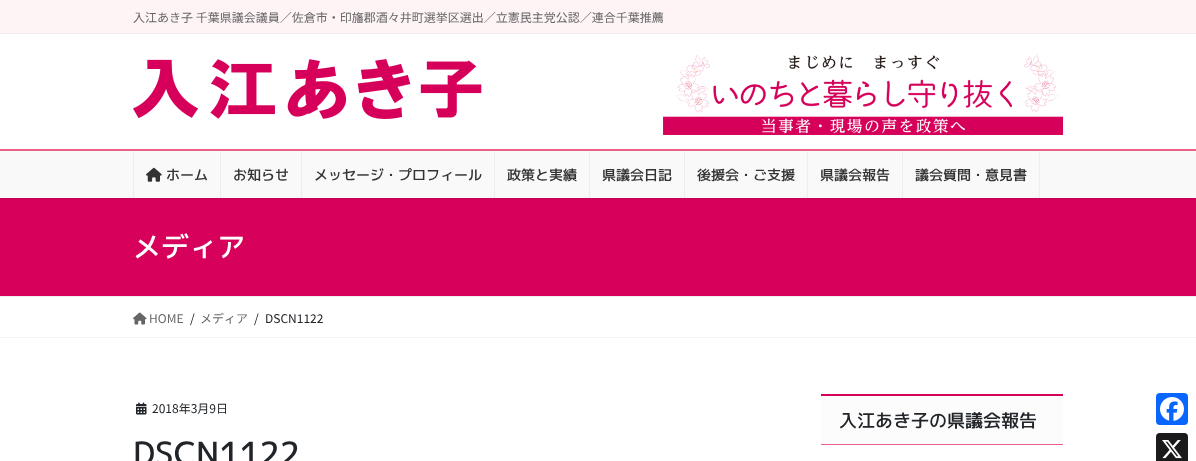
<svg xmlns="http://www.w3.org/2000/svg" width="1196" height="461">
	<style>*{font-kerning:none!important;font-variant-ligatures:none!important}</style>
	<defs>
		<clipPath id="clip1"><rect x="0" y="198" width="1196" height="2" /></clipPath>
	</defs>
	<rect width="100%" height="100%" fill="#FFFFFF" />
	<rect x="0" y="198" width="1196" height="98" fill="#D7005B" />
	<g clip-path="url(#clip1)">
		<rect x="0" y="-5" width="1196" height="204" fill="#000000" fill-opacity="0.1" filter="blur(1.5px)" />
	</g>
	<rect x="0" y="0" width="1196" height="33" fill="#FEF4F6" />
	<rect x="0" y="33" width="1196" height="1" fill="#F4EAEC" />
	<text x="133" y="22" font-family="Noto Sans JP" font-size="12" fill="#666666">入江あき子 千葉県議会議員／佐倉市・印旛郡酒々井町選挙区選出／立憲民主党公認／連合千葉推薦</text>
	<image x="133" y="59" width="349" height="60" href="assets/img1.png" />
	<image x="663" y="54" width="400" height="81" href="assets/img2.png" />
	<rect x="0" y="151" width="1196" height="47" fill="#F9F9F9" />
	<rect x="0" y="149" width="1196" height="2" fill="#EA6088" />
	<rect x="133" y="151" width="1" height="47" fill="#EDEDED" />
	<image x="146" y="167" width="16" height="15" href="assets/img3.png" />
	<text x="166" y="180" font-family="'M PLUS 1p'" font-size="14" font-weight="500" fill="#333333">ホーム</text>
	<rect x="220" y="151" width="1" height="47" fill="#EDEDED" />
	<text x="233" y="180" font-family="'M PLUS 1p'" font-size="14" font-weight="500" fill="#333333">お知らせ</text>
	<rect x="301" y="151" width="1" height="47" fill="#EDEDED" />
	<text x="314" y="180" font-family="'M PLUS 1p'" font-size="14" font-weight="500" fill="#333333">メッセージ・プロフィール</text>
	<rect x="494" y="151" width="1" height="47" fill="#EDEDED" />
	<text x="507" y="180" font-family="'M PLUS 1p'" font-size="14" font-weight="500" fill="#333333">政策と実績</text>
	<rect x="589" y="151" width="1" height="47" fill="#EDEDED" />
	<text x="602" y="180" font-family="'M PLUS 1p'" font-size="14" font-weight="500" fill="#333333">県議会日記</text>
	<rect x="684" y="151" width="1" height="47" fill="#EDEDED" />
	<text x="697" y="180" font-family="'M PLUS 1p'" font-size="14" font-weight="500" fill="#333333">後援会・ご支援</text>
	<rect x="807" y="151" width="1" height="47" fill="#EDEDED" />
	<text x="820" y="180" font-family="'M PLUS 1p'" font-size="14" font-weight="500" fill="#333333">県議会報告</text>
	<rect x="1039" y="151" width="1" height="47" fill="#EDEDED" />
	<rect x="902" y="151" width="1" height="47" fill="#EDEDED" />
	<text x="915" y="180" font-family="'M PLUS 1p'" font-size="14" font-weight="500" fill="#333333">議会質問・意見書</text>
	<rect x="0" y="296" width="1196" height="1" fill="#EEEEEE" />
	<text x="133" y="257" font-family="'M PLUS 1p'" font-size="28" font-weight="500" fill="#FFFFFF">メディア</text>
	<rect x="0" y="337" width="1196" height="1" fill="#F3F3F3" />
	<image x="133" y="312" width="14" height="13" href="assets/img4.png" />
	<text x="149" y="323" font-family="Noto Sans JP" font-size="12" fill="#666666">HOME</text>
	<text x="190" y="323" font-family="Noto Sans JP" font-size="12" fill="#212529">/</text>
	<text x="200" y="323" font-family="Noto Sans JP" font-size="12" fill="#666666">メディア</text>
	<g font-family="Noto Sans JP" font-size="12" fill="#212529">
		<text x="254" y="323">/</text>
		<text x="265" y="323">DSCN1122</text>
	</g>
	<image x="136" y="402" width="11" height="13" href="assets/img5.png" />
	<text x="152" y="413" font-family="Noto Sans JP" font-size="12" fill="#212529">2018年3月9日</text>
	<text x="133" y="465" font-family="'M PLUS 1p'" font-size="32" font-weight="500" fill="#212529">DSCN1122</text>
	<rect x="821" y="396" width="242" height="48" fill="#FCFCFC" />
	<rect x="821" y="394" width="242" height="2" fill="#D6005B" />
	<rect x="821" y="444" width="242" height="1" fill="#EA6088" />
	<text x="839" y="427" font-family="'M PLUS 1p'" font-size="18" font-weight="500" fill="#212529">入江あき子の県議会報告</text>
	<rect x="1156" y="393" width="32" height="32" rx="4" fill="#0866FF" />
	<image x="1160" y="397" width="24" height="24" href="assets/img6.png" />
	<rect x="1156" y="433" width="32" height="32" rx="4" fill="#1A1A1A" />
	<image x="1162" y="440" width="20" height="19" href="assets/img7.png" />
</svg>
